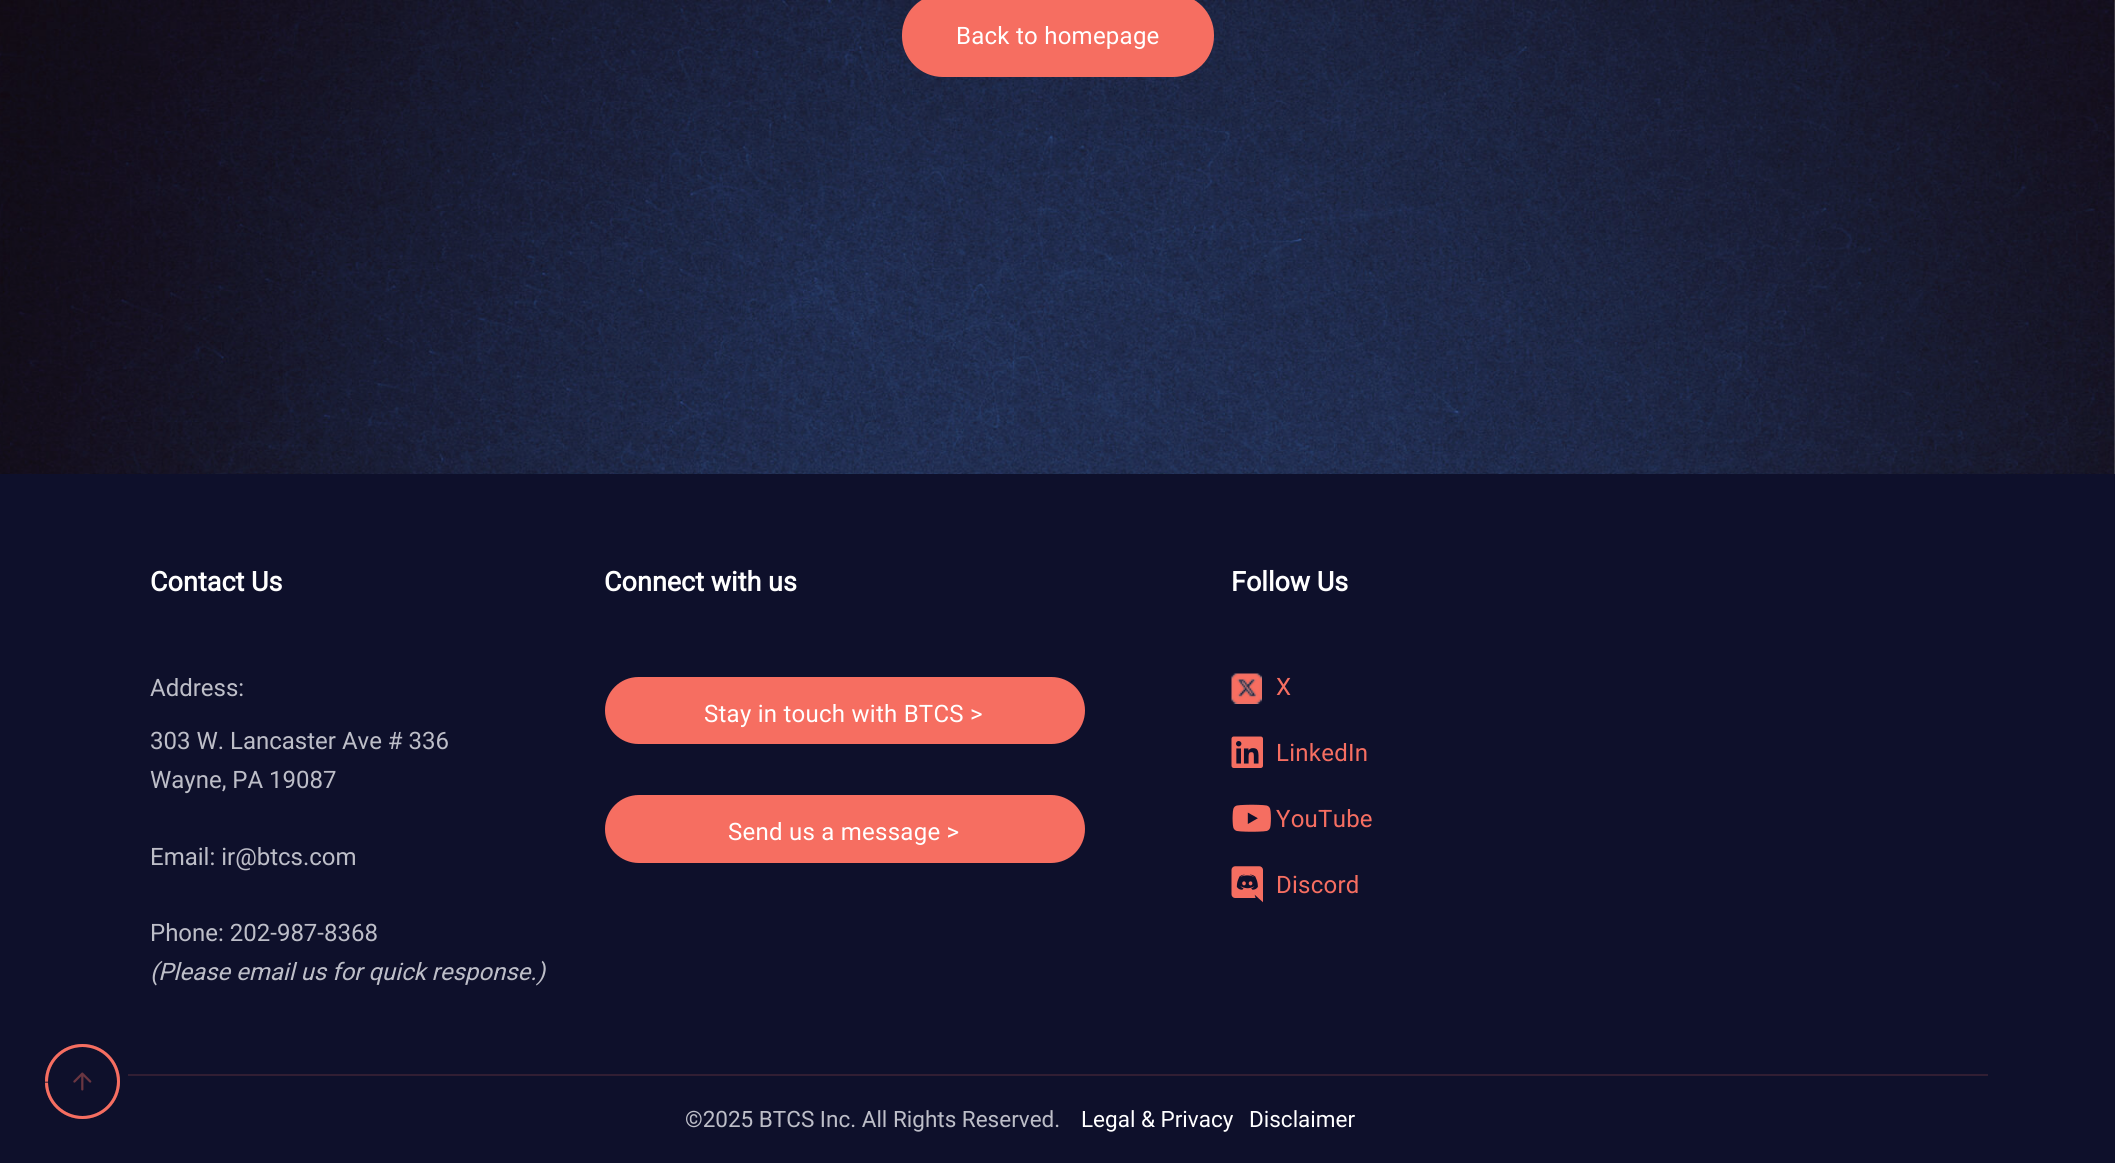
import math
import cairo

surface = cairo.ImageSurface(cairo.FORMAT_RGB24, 2115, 1163)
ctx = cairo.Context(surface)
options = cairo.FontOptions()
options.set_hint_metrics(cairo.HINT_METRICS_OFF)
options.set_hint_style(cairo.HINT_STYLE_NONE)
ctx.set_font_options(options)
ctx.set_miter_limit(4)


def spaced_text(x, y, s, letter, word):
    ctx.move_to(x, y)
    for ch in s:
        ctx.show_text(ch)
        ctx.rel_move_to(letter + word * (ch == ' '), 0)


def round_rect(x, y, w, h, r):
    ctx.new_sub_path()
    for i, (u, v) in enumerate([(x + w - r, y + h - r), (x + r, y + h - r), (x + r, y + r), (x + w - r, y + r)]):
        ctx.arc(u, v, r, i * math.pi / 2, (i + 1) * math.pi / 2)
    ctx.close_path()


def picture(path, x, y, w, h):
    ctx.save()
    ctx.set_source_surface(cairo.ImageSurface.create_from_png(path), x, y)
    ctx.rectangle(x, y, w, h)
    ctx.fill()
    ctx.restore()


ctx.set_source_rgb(1, 1, 1)
ctx.paint()
picture("img1.png", 0, 0, 2115, 474)
ctx.set_source_rgba(0.961, 0.431, 0.38, 0.07)
ctx.rectangle(0, 0, 2115, 474)
ctx.fill()
ctx.set_source_rgb(0.961, 0.431, 0.38)
round_rect(903, -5, 310, 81, 40)
ctx.fill_preserve()
ctx.stroke()
ctx.select_font_face("Roboto")
ctx.set_font_size(24)
ctx.set_source_rgb(1, 1, 1)
spaced_text(956, 44, "Back to homepage", 0.25, 0)
ctx.set_source_rgb(0.055, 0.063, 0.169)
ctx.rectangle(0, 474, 2115, 689)
ctx.fill()
ctx.arc(82.5, 1081.5, 36, 0, 2 * math.pi)
ctx.set_source_rgb(0.416, 0.212, 0.255)
ctx.set_line_width(3)
ctx.stroke()
picture("img2.png", 73, 1072, 19, 19)
ctx.new_path()
ctx.move_to(46.5, 1081.5)
ctx.curve_to(46.5, 1061.5, 62.5, 1045.5, 82.5, 1045.5)
ctx.curve_to(102.5, 1045.5, 118.5, 1061.5, 118.5, 1081.5)
ctx.curve_to(118.5, 1101.5, 102.5, 1117.5, 82.5, 1117.5)
ctx.curve_to(63, 1117.5, 47, 1102, 46.5, 1083)
ctx.set_source_rgb(0.961, 0.431, 0.38)
ctx.stroke()
ctx.select_font_face("Roboto", cairo.FONT_SLANT_NORMAL, cairo.FONT_WEIGHT_BOLD)
ctx.set_font_size(27)
ctx.set_source_rgb(1, 1, 1)
ctx.move_to(150, 591)
ctx.show_text("Contact Us")
ctx.select_font_face("Roboto")
ctx.set_font_size(24)
ctx.set_source_rgb(0.741, 0.745, 0.784)
ctx.move_to(150, 696)
ctx.show_text("Address:")
ctx.move_to(150, 749)
ctx.show_text("303 W. Lancaster Ave # 336")
ctx.move_to(150, 788)
ctx.show_text("Wayne, PA 19087")
ctx.move_to(150, 865)
ctx.show_text("Email: ir@btcs.com")
ctx.move_to(150, 941)
ctx.show_text("Phone: 202-987-8368")
ctx.select_font_face("Roboto", cairo.FONT_SLANT_ITALIC)
ctx.move_to(150, 980)
ctx.show_text("(Please email us for quick response.)")
ctx.select_font_face("Roboto", cairo.FONT_SLANT_NORMAL, cairo.FONT_WEIGHT_BOLD)
ctx.set_font_size(27)
ctx.set_source_rgb(1, 1, 1)
ctx.move_to(604, 591)
ctx.show_text("Connect with us")
ctx.set_source_rgb(0.961, 0.431, 0.38)
round_rect(606, 678, 478, 65, 32.5)
ctx.fill_preserve()
ctx.set_line_width(2)
ctx.stroke()
ctx.select_font_face("Roboto")
ctx.set_font_size(24)
ctx.set_source_rgb(1, 1, 1)
spaced_text(704, 722, "Stay in touch with BTCS >", 0.25, 0)
ctx.set_source_rgb(0.961, 0.431, 0.38)
round_rect(606, 796, 478, 66, 33)
ctx.fill_preserve()
ctx.stroke()
ctx.set_source_rgb(1, 1, 1)
spaced_text(728, 840, "Send us a message >", 0.25, 0)
ctx.select_font_face("Roboto", cairo.FONT_SLANT_NORMAL, cairo.FONT_WEIGHT_BOLD)
ctx.set_font_size(27)
ctx.move_to(1231, 591)
ctx.show_text("Follow Us")
picture("img3.png", 1231, 673, 31, 31)
ctx.select_font_face("Roboto")
ctx.set_font_size(24)
ctx.set_source_rgb(0.961, 0.431, 0.38)
spaced_text(1276, 695, "X", 0.25, 0)
picture("img4.png", 1231, 736, 32, 32)
spaced_text(1276, 761, "LinkedIn", 0.25, 0)
picture("img5.png", 1232, 804, 39, 28)
spaced_text(1276, 827, "YouTube", 0.25, 0)
picture("img6.png", 1231, 866, 32, 37)
spaced_text(1276, 893, "Discord", 0.25, 0)
ctx.set_source_rgb(0.192, 0.118, 0.2)
ctx.rectangle(128, 1074, 1860, 2)
ctx.fill()
ctx.set_font_size(22.5)
ctx.set_source_rgb(0.741, 0.745, 0.784)
ctx.move_to(685, 1127)
ctx.show_text("©2025 BTCS Inc. All Rights Reserved.")
ctx.set_source_rgb(1, 1, 1)
ctx.move_to(1081, 1127)
ctx.show_text("Legal & Privacy")
ctx.move_to(1249, 1127)
ctx.show_text("Disclaimer")
surface.write_to_png("page.png")
